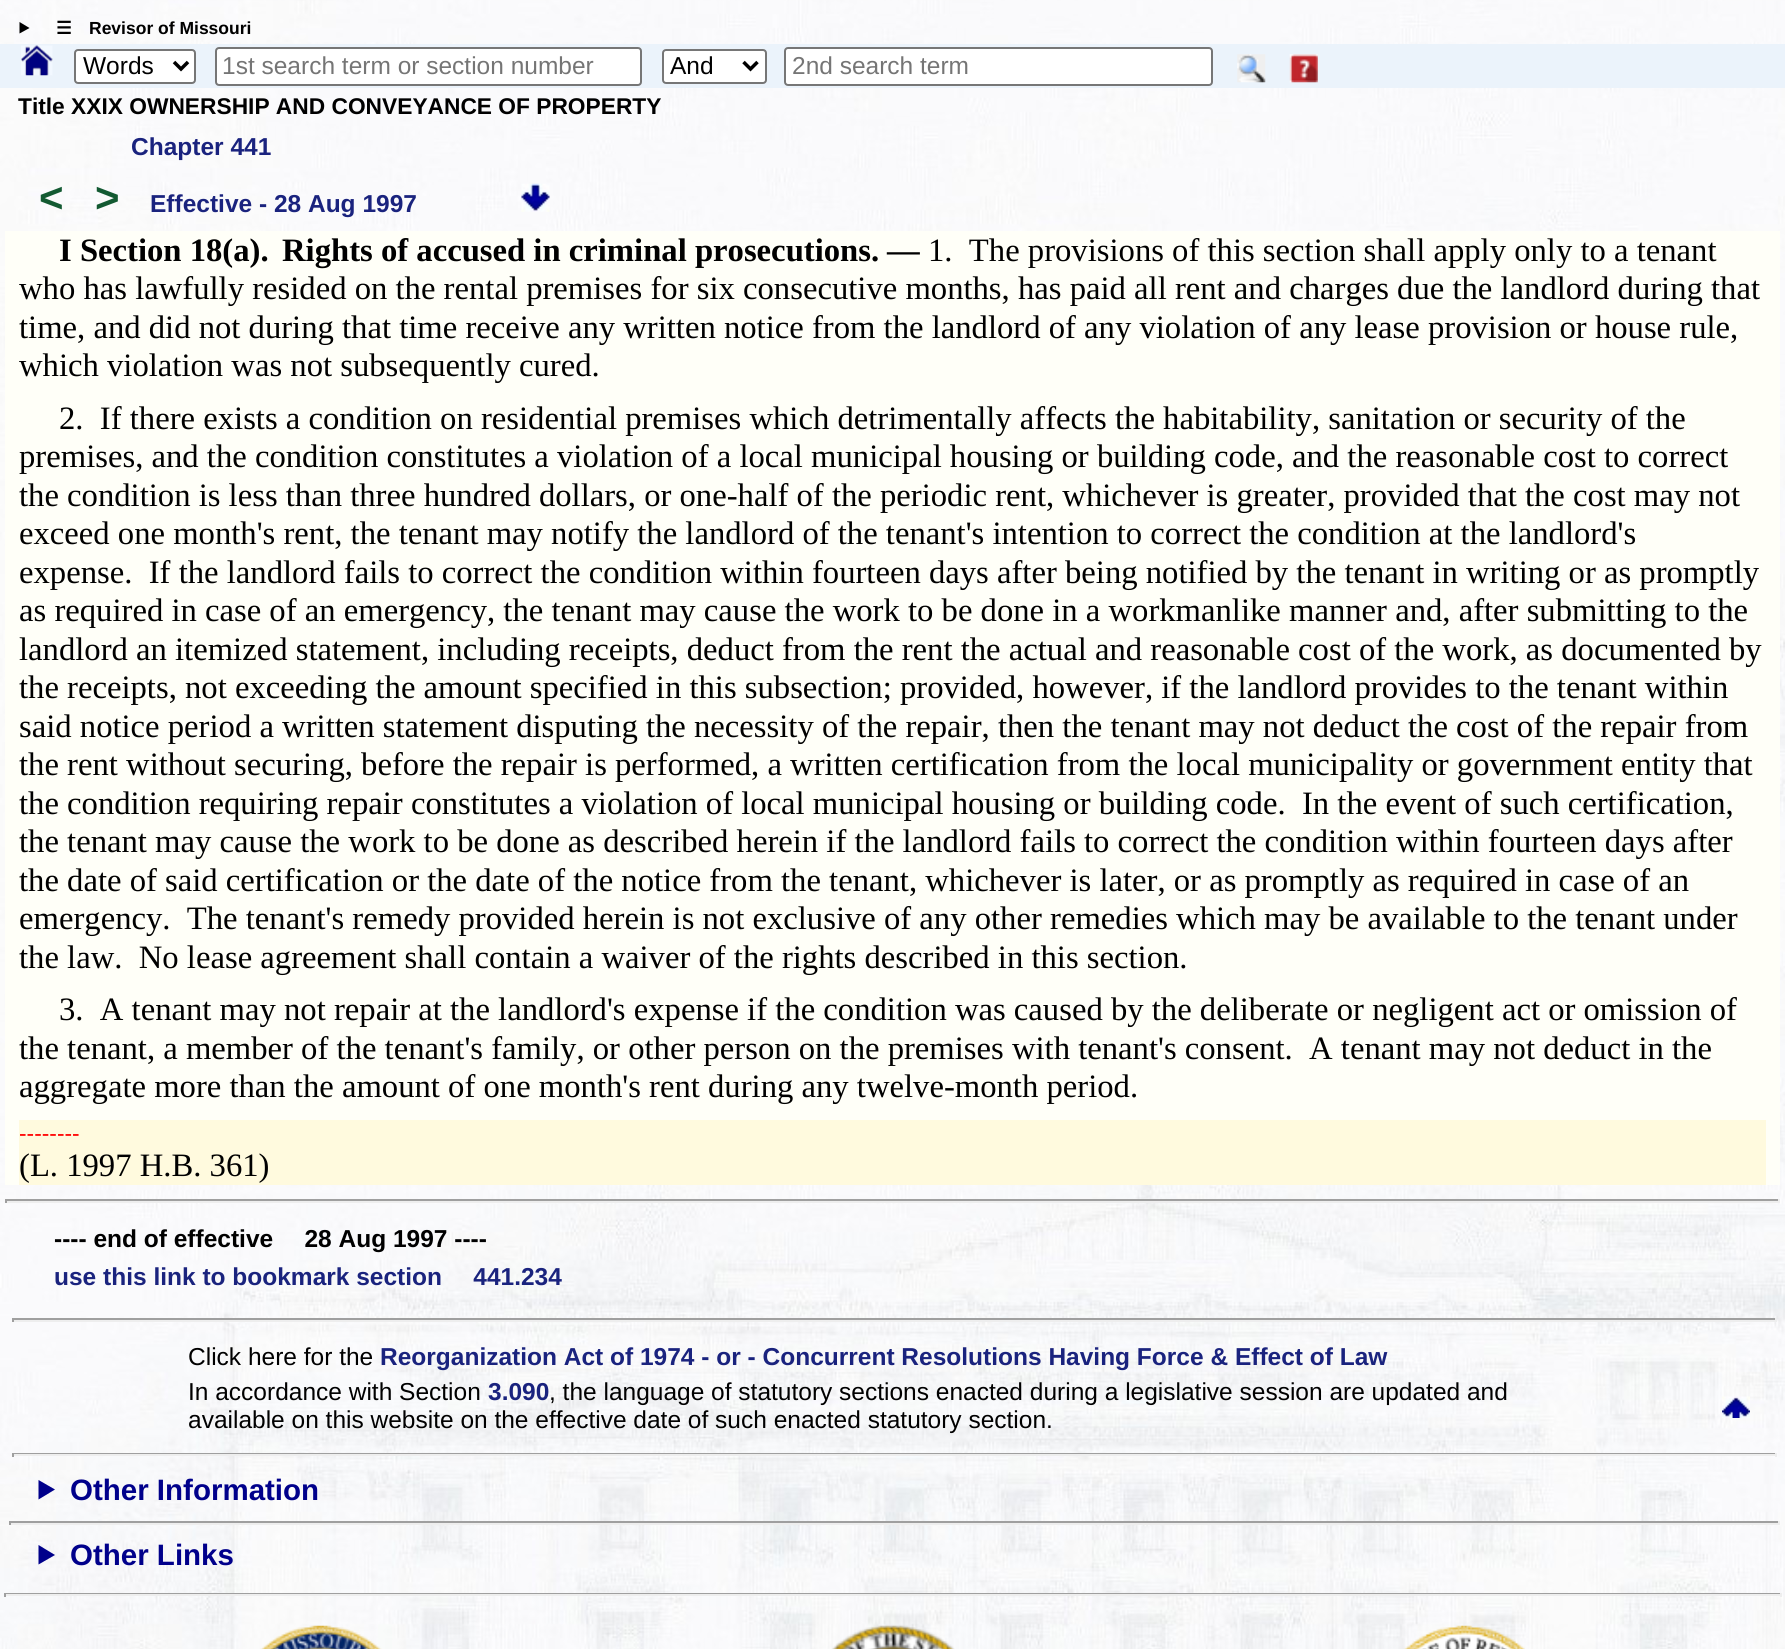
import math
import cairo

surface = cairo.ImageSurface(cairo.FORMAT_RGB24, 1785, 1649)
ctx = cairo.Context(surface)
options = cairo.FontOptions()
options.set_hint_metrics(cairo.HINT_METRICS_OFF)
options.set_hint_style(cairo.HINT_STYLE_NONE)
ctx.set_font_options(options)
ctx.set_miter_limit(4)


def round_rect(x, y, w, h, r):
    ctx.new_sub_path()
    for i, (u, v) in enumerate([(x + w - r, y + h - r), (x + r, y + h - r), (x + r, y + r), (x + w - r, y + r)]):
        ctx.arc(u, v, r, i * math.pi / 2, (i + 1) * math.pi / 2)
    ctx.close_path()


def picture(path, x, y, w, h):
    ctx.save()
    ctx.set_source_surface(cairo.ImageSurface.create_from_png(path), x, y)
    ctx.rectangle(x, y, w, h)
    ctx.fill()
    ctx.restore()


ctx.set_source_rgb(1, 1, 1)
ctx.paint()
picture("img1.png", 0, 0, 1785, 1649)
ctx.set_source_rgb(0, 0, 0)
ctx.new_path()
ctx.move_to(19.5, 22)
ctx.line_to(29.5, 28)
ctx.line_to(19.5, 33.5)
ctx.close_path()
ctx.fill()
ctx.select_font_face("DejaVu Sans", cairo.FONT_SLANT_NORMAL, cairo.FONT_WEIGHT_BOLD)
ctx.set_font_size(17.5)
ctx.move_to(56, 34)
ctx.show_text("☰")
ctx.select_font_face("Liberation Sans", cairo.FONT_SLANT_NORMAL, cairo.FONT_WEIGHT_BOLD)
ctx.move_to(89, 34)
ctx.show_text("Revisor of Missouri")
ctx.set_source_rgb(0.918, 0.953, 0.984)
ctx.rectangle(0, 44, 1785, 44)
ctx.fill()
picture("img2.png", 21, 45, 32, 31)
ctx.set_source_rgb(1, 1, 1)
round_rect(75, 50, 120, 33, 3)
ctx.fill_preserve()
ctx.set_source_rgb(0.463, 0.463, 0.463)
ctx.stroke()
ctx.new_path()
ctx.move_to(174, 62)
ctx.line_to(181, 69)
ctx.line_to(188, 62)
ctx.set_source_rgb(0, 0, 0)
ctx.set_line_width(3.5)
ctx.stroke()
ctx.select_font_face("Liberation Sans")
ctx.set_font_size(24.5)
ctx.move_to(83, 74)
ctx.show_text("Words")
ctx.set_source_rgb(1, 1, 1)
round_rect(216, 48, 425, 37, 3)
ctx.fill_preserve()
ctx.set_source_rgb(0.463, 0.463, 0.463)
ctx.set_line_width(2)
ctx.stroke()
ctx.set_source_rgb(0.459, 0.459, 0.459)
ctx.move_to(222, 74)
ctx.show_text("1st search term or section number")
ctx.set_source_rgb(1, 1, 1)
round_rect(663, 50, 103, 33, 3)
ctx.fill_preserve()
ctx.set_source_rgb(0.463, 0.463, 0.463)
ctx.stroke()
ctx.new_path()
ctx.move_to(743.5, 62)
ctx.line_to(750.5, 69)
ctx.line_to(757.5, 62)
ctx.set_source_rgb(0, 0, 0)
ctx.set_line_width(3.5)
ctx.stroke()
ctx.move_to(670, 74)
ctx.show_text("And")
ctx.set_source_rgb(1, 1, 1)
round_rect(785, 48, 427, 37, 3)
ctx.fill_preserve()
ctx.set_source_rgb(0.463, 0.463, 0.463)
ctx.set_line_width(2)
ctx.stroke()
ctx.set_source_rgb(0.459, 0.459, 0.459)
ctx.move_to(792, 74)
ctx.show_text("2nd search term")
picture("img3.png", 1237, 54, 29, 29)
picture("img4.png", 1289, 54, 29, 29)
ctx.select_font_face("Liberation Sans", cairo.FONT_SLANT_NORMAL, cairo.FONT_WEIGHT_BOLD)
ctx.set_font_size(22.75)
ctx.set_source_rgb(0, 0, 0)
ctx.move_to(18, 114)
ctx.show_text("Title XXIX OWNERSHIP AND CONVEYANCE OF PROPERTY")
ctx.set_font_size(24.5)
ctx.set_source_rgb(0.102, 0.137, 0.494)
ctx.move_to(131, 155)
ctx.show_text("Chapter 441")
ctx.set_font_size(42)
ctx.set_source_rgb(0.078, 0.353, 0.196)
ctx.move_to(39, 212)
ctx.show_text("<")
ctx.move_to(95, 212)
ctx.show_text(">")
ctx.set_font_size(24.5)
ctx.set_source_rgb(0.102, 0.137, 0.494)
ctx.move_to(150, 212)
ctx.show_text("Effective - 28 Aug 1997")
picture("img5.png", 521, 183, 29, 29)
ctx.set_source_rgb(1, 1, 0.969)
ctx.rectangle(5, 231, 1775, 954)
ctx.fill()
ctx.select_font_face("Liberation Serif", cairo.FONT_SLANT_NORMAL, cairo.FONT_WEIGHT_BOLD)
ctx.set_font_size(32.67)
ctx.set_source_rgb(0, 0, 0)
ctx.move_to(59, 261)
ctx.show_text("I Section 18(a).")
ctx.move_to(282, 261)
ctx.show_text("Rights of accused in criminal prosecutions.")
ctx.move_to(887, 261)
ctx.show_text("—")
ctx.select_font_face("Liberation Serif")
ctx.move_to(928, 261)
ctx.show_text("1.  The provisions of this section shall apply only to a tenant")
ctx.move_to(19, 299)
ctx.show_text("who has lawfully resided on the rental premises for six consecutive months, has paid all rent and charges due the landlord during that")
ctx.move_to(19, 338)
ctx.show_text("time, and did not during that time receive any written notice from the landlord of any violation of any lease provision or house rule,")
ctx.move_to(19, 376)
ctx.show_text("which violation was not subsequently cured.")
ctx.move_to(59, 429)
ctx.show_text("2.  If there exists a condition on residential premises which detrimentally affects the habitability, sanitation or security of the")
ctx.move_to(19, 467)
ctx.show_text("premises, and the condition constitutes a violation of a local municipal housing or building code, and the reasonable cost to correct")
ctx.move_to(19, 506)
ctx.show_text("the condition is less than three hundred dollars, or one-half of the periodic rent, whichever is greater, provided that the cost may not")
ctx.move_to(19, 544)
ctx.show_text("exceed one month's rent, the tenant may notify the landlord of the tenant's intention to correct the condition at the landlord's")
ctx.move_to(19, 583)
ctx.show_text("expense.  If the landlord fails to correct the condition within fourteen days after being notified by the tenant in writing or as promptly")
ctx.move_to(19, 621)
ctx.show_text("as required in case of an emergency, the tenant may cause the work to be done in a workmanlike manner and, after submitting to the")
ctx.move_to(19, 660)
ctx.show_text("landlord an itemized statement, including receipts, deduct from the rent the actual and reasonable cost of the work, as documented by")
ctx.move_to(19, 698)
ctx.show_text("the receipts, not exceeding the amount specified in this subsection; provided, however, if the landlord provides to the tenant within")
ctx.move_to(19, 737)
ctx.show_text("said notice period a written statement disputing the necessity of the repair, then the tenant may not deduct the cost of the repair from")
ctx.move_to(19, 775)
ctx.show_text("the rent without securing, before the repair is performed, a written certification from the local municipality or government entity that")
ctx.move_to(19, 814)
ctx.show_text("the condition requiring repair constitutes a violation of local municipal housing or building code.  In the event of such certification,")
ctx.move_to(19, 852)
ctx.show_text("the tenant may cause the work to be done as described herein if the landlord fails to correct the condition within fourteen days after")
ctx.move_to(19, 891)
ctx.show_text("the date of said certification or the date of the notice from the tenant, whichever is later, or as promptly as required in case of an")
ctx.move_to(19, 929)
ctx.show_text("emergency.  The tenant's remedy provided herein is not exclusive of any other remedies which may be available to the tenant under")
ctx.move_to(19, 968)
ctx.show_text("the law.  No lease agreement shall contain a waiver of the rights described in this section.")
ctx.move_to(59, 1020)
ctx.show_text("3.  A tenant may not repair at the landlord's expense if the condition was caused by the deliberate or negligent act or omission of")
ctx.move_to(19, 1059)
ctx.show_text("the tenant, a member of the tenant's family, or other person on the premises with tenant's consent.  A tenant may not deduct in the")
ctx.move_to(19, 1097)
ctx.show_text("aggregate more than the amount of one month's rent during any twelve-month period.")
ctx.set_source_rgb(1, 0.98, 0.871)
ctx.rectangle(19, 1120, 1747, 65)
ctx.fill()
ctx.select_font_face("Liberation Sans")
ctx.set_font_size(22.75)
ctx.set_source_rgb(1, 0, 0)
ctx.move_to(19, 1141)
ctx.show_text("--------")
ctx.select_font_face("Liberation Serif")
ctx.set_font_size(32.67)
ctx.set_source_rgb(0, 0, 0)
ctx.move_to(19, 1176)
ctx.show_text("(L. 1997 H.B. 361)")
ctx.set_source_rgb(0.624, 0.624, 0.624)
ctx.rectangle(5, 1199, 1775, 2)
ctx.fill()
ctx.set_source_rgb(0.933, 0.933, 0.933)
ctx.rectangle(1778, 1199, 2, 4)
ctx.fill()
ctx.rectangle(5, 1201, 1775, 2)
ctx.fill()
ctx.set_source_rgb(0.624, 0.624, 0.624)
ctx.rectangle(5, 1199, 2, 4)
ctx.fill()
ctx.select_font_face("Liberation Sans", cairo.FONT_SLANT_NORMAL, cairo.FONT_WEIGHT_BOLD)
ctx.set_font_size(24.5)
ctx.set_source_rgb(0, 0, 0)
ctx.move_to(54, 1247)
ctx.show_text("---- end of effective  28 Aug 1997 ----")
ctx.set_source_rgb(0.102, 0.137, 0.494)
ctx.move_to(54, 1285)
ctx.show_text("use this link to bookmark section  441.234")
ctx.set_source_rgb(0.624, 0.624, 0.624)
ctx.rectangle(12, 1318, 1764, 2)
ctx.fill()
ctx.set_source_rgb(0.933, 0.933, 0.933)
ctx.rectangle(1775, 1318, 2, 4)
ctx.fill()
ctx.rectangle(12, 1320, 1764, 2)
ctx.fill()
ctx.set_source_rgb(0.624, 0.624, 0.624)
ctx.rectangle(12, 1318, 2, 4)
ctx.fill()
ctx.select_font_face("Liberation Sans")
ctx.set_source_rgb(0, 0, 0)
ctx.move_to(188, 1365)
ctx.show_text("Click here for the")
ctx.select_font_face("Liberation Sans", cairo.FONT_SLANT_NORMAL, cairo.FONT_WEIGHT_BOLD)
ctx.set_source_rgb(0.102, 0.137, 0.494)
ctx.move_to(380, 1365)
ctx.show_text("Reorganization Act of 1974 - or - Concurrent Resolutions Having Force & Effect of Law")
ctx.select_font_face("Liberation Sans")
ctx.set_source_rgb(0, 0, 0)
ctx.move_to(188, 1400)
ctx.show_text("In accordance with Section")
ctx.select_font_face("Liberation Sans", cairo.FONT_SLANT_NORMAL, cairo.FONT_WEIGHT_BOLD)
ctx.set_source_rgb(0.102, 0.137, 0.494)
ctx.move_to(488, 1400)
ctx.show_text("3.090")
ctx.select_font_face("Liberation Sans")
ctx.set_source_rgb(0, 0, 0)
ctx.move_to(549, 1400)
ctx.show_text(", the language of statutory sections enacted during a legislative session are updated and")
ctx.move_to(188, 1428)
ctx.show_text("available on this website on the effective date of such enacted statutory section.")
picture("img6.png", 1722, 1396, 28, 22)
ctx.set_source_rgb(0.624, 0.624, 0.624)
ctx.rectangle(12, 1453, 1764, 1)
ctx.fill()
ctx.set_source_rgb(0.933, 0.933, 0.933)
ctx.rectangle(1775, 1453, 2, 4)
ctx.fill()
ctx.rectangle(12, 1454, 1764, 2)
ctx.fill()
ctx.set_source_rgb(0.624, 0.624, 0.624)
ctx.rectangle(12, 1453, 2, 4)
ctx.fill()
ctx.set_source_rgb(0, 0, 0.545)
ctx.new_path()
ctx.move_to(38.5, 1480)
ctx.line_to(55, 1489.5)
ctx.line_to(38.5, 1499.5)
ctx.close_path()
ctx.fill()
ctx.select_font_face("Liberation Sans", cairo.FONT_SLANT_NORMAL, cairo.FONT_WEIGHT_BOLD)
ctx.set_font_size(29.5)
ctx.move_to(70, 1500)
ctx.show_text("Other Information")
ctx.set_source_rgb(0.624, 0.624, 0.624)
ctx.rectangle(9, 1521, 1771, 2)
ctx.fill()
ctx.set_source_rgb(0.933, 0.933, 0.933)
ctx.rectangle(1778, 1521, 2, 4)
ctx.fill()
ctx.rectangle(9, 1523, 1771, 2)
ctx.fill()
ctx.set_source_rgb(0.624, 0.624, 0.624)
ctx.rectangle(9, 1521, 2, 4)
ctx.fill()
ctx.set_source_rgb(0, 0, 0.545)
ctx.new_path()
ctx.move_to(38.5, 1545)
ctx.line_to(55, 1555)
ctx.line_to(38.5, 1564.5)
ctx.close_path()
ctx.fill()
ctx.move_to(70, 1565)
ctx.show_text("Other Links")
ctx.set_source_rgb(0.624, 0.624, 0.624)
ctx.rectangle(4, 1593, 1778, 1)
ctx.fill()
ctx.set_source_rgb(0.933, 0.933, 0.933)
ctx.rectangle(1780, 1593, 2, 4)
ctx.fill()
ctx.rectangle(4, 1594, 1778, 2)
ctx.fill()
ctx.set_source_rgb(0.624, 0.624, 0.624)
ctx.rectangle(4, 1593, 2, 4)
ctx.fill()
picture("img7.png", 260, 1625, 122, 24)
picture("img8.png", 832, 1625, 123, 24)
picture("img9.png", 1403, 1625, 122, 24)
surface.write_to_png("page.png")
